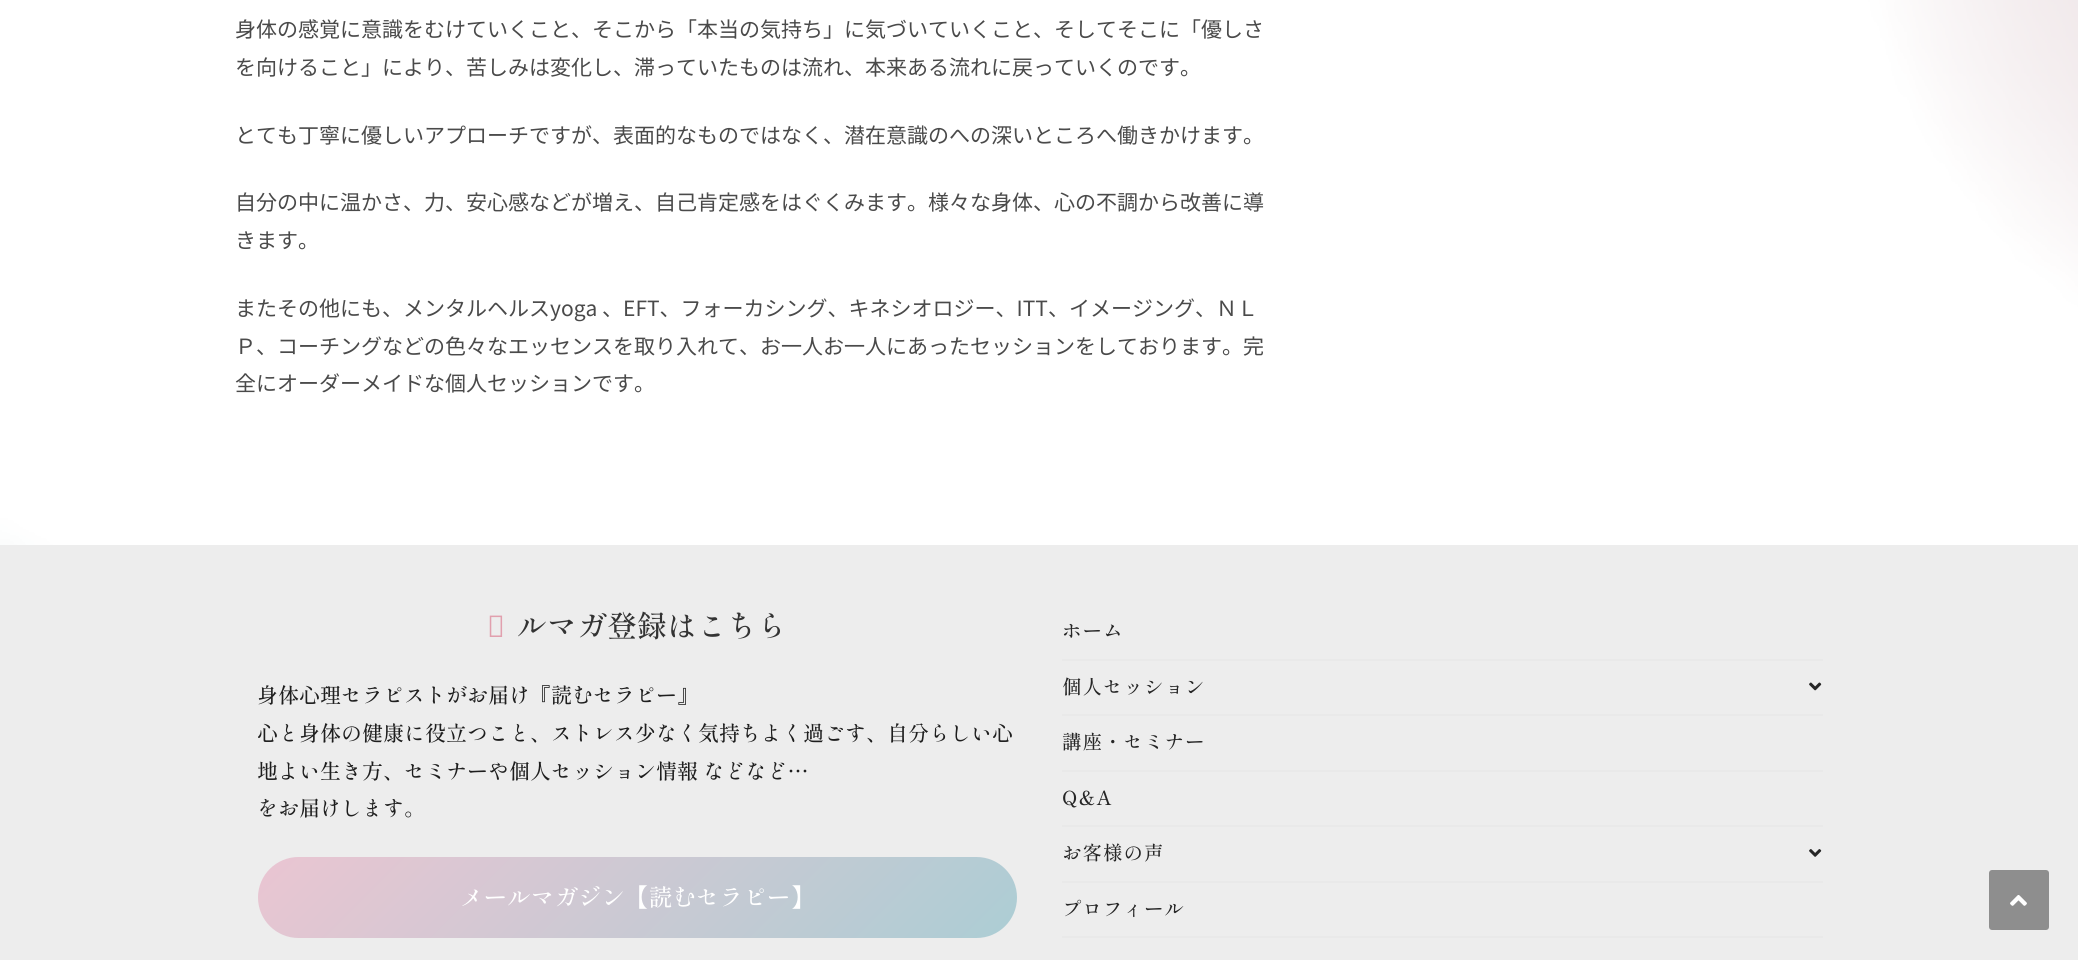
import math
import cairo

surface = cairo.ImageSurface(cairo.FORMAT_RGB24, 2078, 960)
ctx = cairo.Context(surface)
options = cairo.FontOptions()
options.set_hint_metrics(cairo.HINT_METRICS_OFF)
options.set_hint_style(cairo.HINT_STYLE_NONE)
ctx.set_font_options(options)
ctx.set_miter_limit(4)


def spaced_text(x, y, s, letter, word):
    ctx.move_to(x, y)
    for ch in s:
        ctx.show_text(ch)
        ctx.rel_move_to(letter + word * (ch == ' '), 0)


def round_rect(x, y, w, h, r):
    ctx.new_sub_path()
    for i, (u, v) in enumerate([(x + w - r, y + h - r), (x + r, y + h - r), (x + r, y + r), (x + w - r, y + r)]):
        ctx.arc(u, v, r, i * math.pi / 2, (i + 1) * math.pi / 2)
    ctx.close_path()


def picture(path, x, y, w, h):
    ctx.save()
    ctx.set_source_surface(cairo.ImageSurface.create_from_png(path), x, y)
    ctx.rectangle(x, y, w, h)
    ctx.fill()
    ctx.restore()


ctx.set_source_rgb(1, 1, 1)
ctx.paint()
picture("img1.png", 0, 0, 2078, 545)
ctx.select_font_face("Noto Sans JP Thin")
ctx.set_font_size(21)
ctx.set_source_rgb(0.29, 0.29, 0.29)
ctx.move_to(235, 37)
ctx.show_text("身体の感覚に意識をむけていくこと、そこから「本当の気持ち」に気づいていくこと、そしてそこに「優しさ")
ctx.move_to(235, 75)
ctx.show_text("を向けること」により、苦しみは変化し、滞っていたものは流れ、本来ある流れに戻っていくのです。")
ctx.move_to(235, 143)
ctx.show_text("とても丁寧に優しいアプローチですが、表面的なものではなく、潜在意識のへの深いところへ働きかけます。")
ctx.move_to(235, 210)
ctx.show_text("自分の中に温かさ、力、安心感などが増え、自己肯定感をはぐくみます。様々な身体、心の不調から改善に導")
ctx.move_to(235, 248)
ctx.show_text("きます。")
ctx.move_to(235, 316)
ctx.show_text("またその他にも、メンタルヘルスyoga 、EFT、フォーカシング、キネシオロジー、ITT、イメージング、ＮＬ")
ctx.move_to(235, 354)
ctx.show_text("Ｐ、コーチングなどの色々なエッセンスを取り入れて、お一人お一人にあったセッションをしております。完")
ctx.move_to(235, 391)
ctx.show_text("全にオーダーメイドな個人セッションです。")
ctx.set_source_rgb(0.929, 0.929, 0.929)
ctx.rectangle(0, 545, 2078, 415)
ctx.fill()
ctx.select_font_face("Noto Sans Medium")
ctx.set_font_size(30)
ctx.set_source_rgb(0.882, 0.627, 0.682)
ctx.move_to(487, 637)
ctx.show_text("メ")
ctx.select_font_face("Shippori Mincho Medium")
ctx.set_source_rgb(0.2, 0.2, 0.2)
ctx.move_to(517, 637)
ctx.show_text("ルマガ登録はこちら")
ctx.set_font_size(21)
ctx.set_source_rgb(0.118, 0.118, 0.118)
ctx.move_to(257, 703)
ctx.show_text("身体心理セラピストがお届け『読むセラピー』")
ctx.move_to(257, 741)
ctx.show_text("心と身体の健康に役立つこと、ストレス少なく気持ちよく過ごす、自分らしい心")
ctx.move_to(257, 779)
ctx.show_text("地よい生き方、セミナーや個人セッション情報 などなど…")
ctx.move_to(257, 816)
ctx.show_text("をお届けします。")
gradient = cairo.LinearGradient(428, 687, 848, 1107)
gradient.add_color_stop_rgba(0, 0.918, 0.773, 0.824, 1)
gradient.add_color_stop_rgba(1, 0.675, 0.804, 0.831, 1)
ctx.set_source(gradient)
round_rect(258, 857, 759, 81, 40.5)
ctx.fill()
ctx.set_font_size(23.6)
ctx.set_source_rgb(1, 1, 1)
ctx.move_to(460, 906)
ctx.show_text("メールマガジン【読むセラピー】")
ctx.set_source_rgb(0.914, 0.914, 0.914)
ctx.rectangle(1062, 659, 761, 2)
ctx.fill()
ctx.set_font_size(19.5)
ctx.set_source_rgb(0.149, 0.149, 0.149)
spaced_text(1062, 638, "ホーム", 1, 0)
ctx.set_source_rgb(0.914, 0.914, 0.914)
ctx.rectangle(1062, 714, 761, 2)
ctx.fill()
ctx.set_source_rgb(0.149, 0.149, 0.149)
spaced_text(1062, 694, "個人セッション", 1, 0)
picture("img2.png", 1809, 682, 13, 9)
ctx.set_source_rgb(0.914, 0.914, 0.914)
ctx.rectangle(1062, 770, 761, 2)
ctx.fill()
ctx.set_source_rgb(0.149, 0.149, 0.149)
spaced_text(1062, 749, "講座・セミナー", 1, 0)
ctx.set_source_rgb(0.914, 0.914, 0.914)
ctx.rectangle(1062, 825, 761, 2)
ctx.fill()
ctx.set_source_rgb(0.149, 0.149, 0.149)
spaced_text(1062, 805, "Q&A", 1, 0)
ctx.set_source_rgb(0.914, 0.914, 0.914)
ctx.rectangle(1062, 881, 761, 2)
ctx.fill()
ctx.set_source_rgb(0.149, 0.149, 0.149)
spaced_text(1062, 860, "お客様の声", 1, 0)
picture("img3.png", 1809, 849, 13, 8)
ctx.set_source_rgb(0.914, 0.914, 0.914)
ctx.rectangle(1062, 936, 761, 2)
ctx.fill()
ctx.set_source_rgb(0.149, 0.149, 0.149)
spaced_text(1062, 916, "プロフィール", 1, 0)
ctx.set_source_rgb(0.557, 0.557, 0.557)
round_rect(1989, 870, 60, 60, 3)
ctx.fill()
picture("img4.png", 2010, 895, 17, 11)
surface.write_to_png("page.png")
